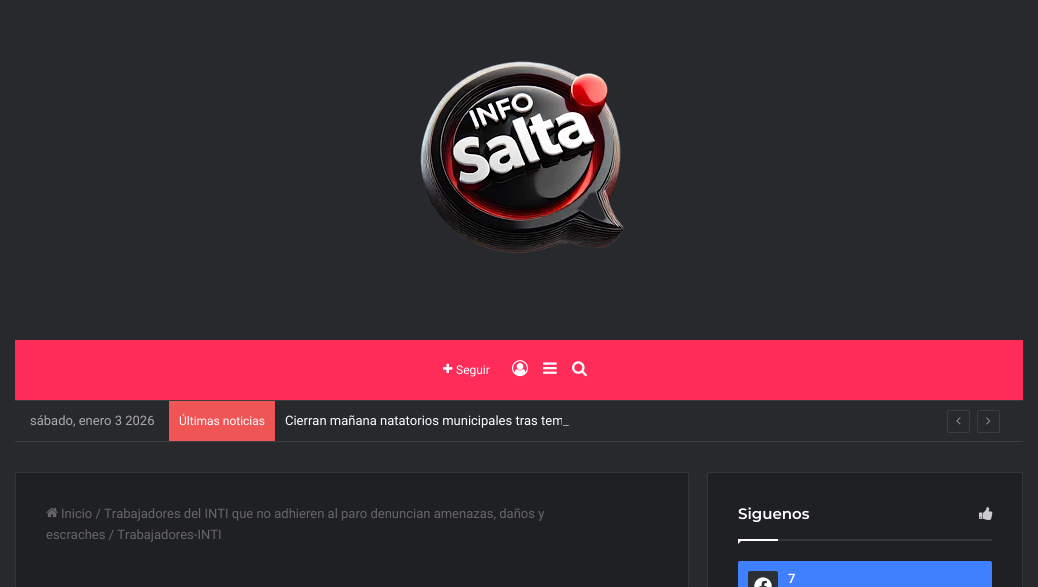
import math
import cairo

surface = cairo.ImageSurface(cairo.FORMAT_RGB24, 1038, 587)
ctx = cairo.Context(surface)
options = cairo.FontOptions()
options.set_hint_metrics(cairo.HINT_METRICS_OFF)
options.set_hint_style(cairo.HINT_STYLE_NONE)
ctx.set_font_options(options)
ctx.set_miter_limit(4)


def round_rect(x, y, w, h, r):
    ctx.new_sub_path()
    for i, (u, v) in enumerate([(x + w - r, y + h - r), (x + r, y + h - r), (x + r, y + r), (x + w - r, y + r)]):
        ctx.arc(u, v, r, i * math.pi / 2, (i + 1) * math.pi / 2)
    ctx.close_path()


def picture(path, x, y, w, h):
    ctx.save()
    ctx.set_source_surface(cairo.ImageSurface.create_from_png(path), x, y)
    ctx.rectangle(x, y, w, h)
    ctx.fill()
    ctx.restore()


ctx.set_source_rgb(0.153, 0.161, 0.176)
ctx.paint()
picture("img1.png", 420, 61, 204, 192)
ctx.set_source_rgb(1, 0.169, 0.345)
ctx.rectangle(15, 340, 1008, 60)
ctx.fill()
picture("img2.png", 443, 363, 10, 11)
ctx.select_font_face("Roboto")
ctx.set_font_size(12)
ctx.set_source_rgb(1, 1, 1)
ctx.move_to(456, 374)
ctx.show_text("Seguir")
picture("img3.png", 512, 360, 16, 17)
picture("img4.png", 543, 362, 14, 12)
picture("img5.png", 572, 361, 15, 16)
ctx.set_source_rgb(0.231, 0.243, 0.251)
ctx.rectangle(15, 400, 1008, 1)
ctx.fill()
ctx.rectangle(15, 441, 1008, 1)
ctx.fill()
ctx.set_font_size(13)
ctx.set_source_rgb(0.667, 0.667, 0.667)
ctx.move_to(30, 425)
ctx.show_text("sábado, enero 3 2026")
ctx.set_source_rgb(0.941, 0.333, 0.333)
ctx.rectangle(169, 401, 106, 40)
ctx.fill()
ctx.set_font_size(12)
ctx.set_source_rgb(1, 1, 1)
ctx.move_to(179, 425)
ctx.show_text("Últimas noticias")
ctx.set_font_size(13)
ctx.move_to(285, 425)
ctx.show_text("Cierran mañana natatorios municipales tras tem")
ctx.set_source_rgb(0.145, 0.157, 0.169)
ctx.rectangle(562, 418, 2, 7)
ctx.fill()
ctx.set_source_rgb(0.667, 0.667, 0.667)
ctx.move_to(563, 425)
ctx.show_text("_")
round_rect(947.5, 410.5, 22, 22, 1.5)
ctx.set_source_rgb(0.231, 0.243, 0.251)
ctx.set_line_width(1)
ctx.stroke()
picture("img6.png", 956, 417, 5, 8)
round_rect(977.5, 410.5, 22, 22, 1.5)
ctx.stroke()
picture("img7.png", 986, 417, 5, 8)
ctx.set_source_rgb(0.122, 0.125, 0.141)
round_rect(15.5, 472.5, 673, 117, 1.5)
ctx.fill_preserve()
ctx.set_source_rgb(0.208, 0.212, 0.227)
ctx.stroke()
picture("img8.png", 46, 507, 12, 11)
ctx.set_source_rgb(0.4, 0.4, 0.4)
ctx.move_to(61, 518)
ctx.show_text("Inicio / Trabajadores del INTI que no adhieren al paro denuncian amenazas, daños y")
ctx.move_to(46, 539)
ctx.show_text("escraches / Trabajadores-INTI")
ctx.set_source_rgb(0.122, 0.125, 0.141)
round_rect(707.5, 472.5, 315, 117, 1.5)
ctx.fill_preserve()
ctx.set_source_rgb(0.208, 0.212, 0.227)
ctx.stroke()
ctx.rectangle(778, 539, 214, 2)
ctx.fill()
ctx.select_font_face("Montserrat SemiBold")
ctx.set_font_size(15)
ctx.set_source_rgb(1, 1, 1)
ctx.move_to(738, 519)
ctx.show_text("Siguenos")
picture("img9.png", 979, 507, 14, 13)
ctx.new_path()
ctx.move_to(738, 539)
ctx.line_to(743, 539)
ctx.line_to(738, 544)
ctx.close_path()
ctx.fill()
ctx.rectangle(738, 539, 40, 2)
ctx.fill()
ctx.set_source_rgb(0.251, 0.502, 1)
round_rect(738, 561, 254, 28, 2)
ctx.fill()
ctx.set_source_rgb(0.173, 0.184, 0.204)
round_rect(748, 571, 30, 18, 2)
ctx.fill()
picture("img10.png", 754, 577, 18, 10)
ctx.select_font_face("Roboto SemiBold")
ctx.set_font_size(13)
ctx.set_source_rgb(1, 1, 1)
ctx.move_to(788, 583)
ctx.show_text("7")
surface.write_to_png("page.png")
